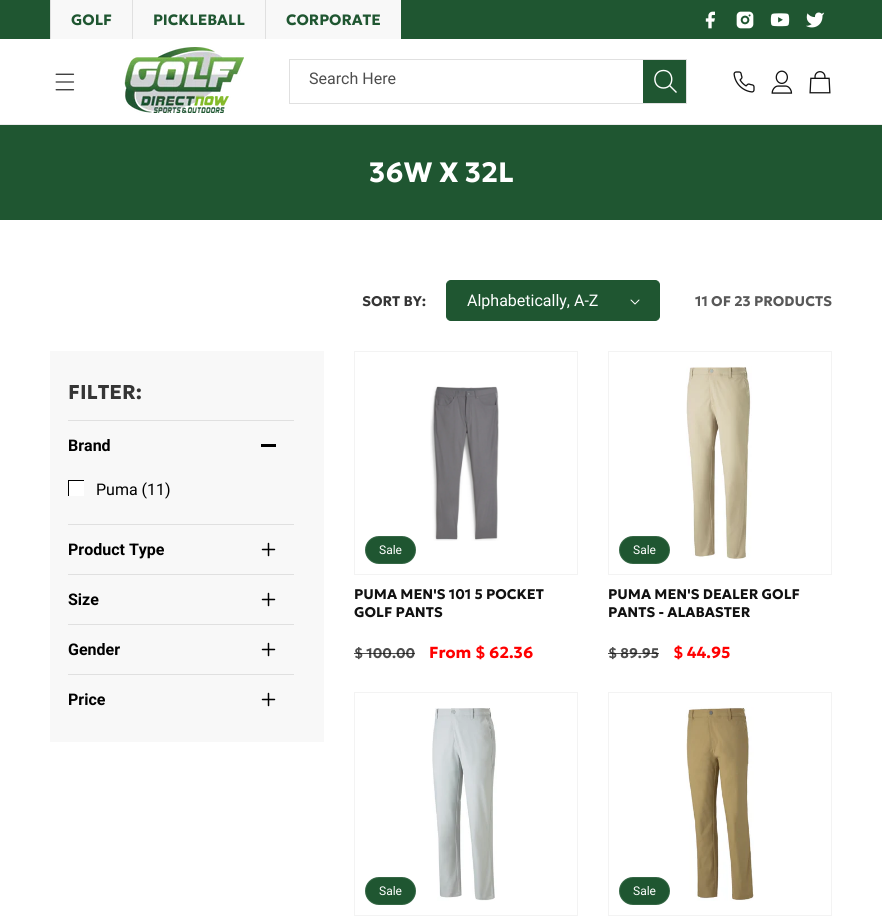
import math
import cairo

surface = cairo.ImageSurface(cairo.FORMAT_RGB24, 882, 921)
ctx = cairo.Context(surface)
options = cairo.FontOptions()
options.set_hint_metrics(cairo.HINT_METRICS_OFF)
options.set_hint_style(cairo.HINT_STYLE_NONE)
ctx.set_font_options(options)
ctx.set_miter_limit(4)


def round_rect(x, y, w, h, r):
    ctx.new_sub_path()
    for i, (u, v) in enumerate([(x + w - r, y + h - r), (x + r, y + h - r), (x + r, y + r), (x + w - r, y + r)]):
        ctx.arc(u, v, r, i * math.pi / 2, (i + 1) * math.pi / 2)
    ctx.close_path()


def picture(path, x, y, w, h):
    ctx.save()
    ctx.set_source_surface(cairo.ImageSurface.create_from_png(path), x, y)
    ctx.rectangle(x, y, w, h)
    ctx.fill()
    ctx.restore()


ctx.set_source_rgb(1, 1, 1)
ctx.paint()
ctx.set_source_rgb(0.122, 0.337, 0.192)
ctx.rectangle(0, 0, 882, 39)
ctx.fill()
ctx.set_source_rgb(0.969, 0.969, 0.969)
ctx.rectangle(51, 0, 81, 39)
ctx.fill()
ctx.set_source_rgb(0.878, 0.878, 0.878)
ctx.rectangle(50, 0, 1, 39)
ctx.fill()
ctx.select_font_face("Geologica", cairo.FONT_SLANT_NORMAL, cairo.FONT_WEIGHT_BOLD)
ctx.set_font_size(15)
ctx.set_source_rgb(0.122, 0.337, 0.192)
ctx.move_to(71, 25)
ctx.show_text("GOLF")
ctx.set_source_rgb(0.969, 0.969, 0.969)
ctx.rectangle(133, 0, 132, 39)
ctx.fill()
ctx.set_source_rgb(0.878, 0.878, 0.878)
ctx.rectangle(132, 0, 1, 39)
ctx.fill()
ctx.set_source_rgb(0.122, 0.337, 0.192)
ctx.move_to(153, 25)
ctx.show_text("PICKLEBALL")
ctx.set_source_rgb(0.969, 0.969, 0.969)
ctx.rectangle(266, 0, 135, 39)
ctx.fill()
ctx.set_source_rgb(0.878, 0.878, 0.878)
ctx.rectangle(265, 0, 1, 39)
ctx.fill()
ctx.set_source_rgb(0.122, 0.337, 0.192)
ctx.move_to(286, 25)
ctx.show_text("CORPORATE")
picture("img1.png", 705, 11, 10, 18)
picture("img2.png", 736, 11, 18, 18)
picture("img3.png", 770, 13, 20, 14)
picture("img4.png", 806, 12, 19, 16)
ctx.set_source_rgb(0.925, 0.925, 0.925)
ctx.rectangle(0, 124, 882, 1)
ctx.fill()
picture("img5.png", 55, 73, 20, 18)
picture("img6.png", 124, 47, 120, 66)
ctx.set_source_rgb(0.122, 0.337, 0.192)
ctx.rectangle(643, 60, 43, 43)
ctx.fill()
ctx.new_path()
ctx.move_to(663.5, 88)
ctx.curve_to(674.5, 88, 674.5, 70.5, 663.5, 70.5)
ctx.curve_to(652, 70.5, 652, 88, 663.5, 88)
ctx.close_path()
ctx.move_to(669.5, 85.5)
ctx.line_to(676.5, 92.5)
ctx.set_source_rgb(1, 1, 1)
ctx.set_line_width(1.4)
ctx.stroke()
ctx.rectangle(289.5, 59.5, 397, 44)
ctx.set_source_rgb(0.878, 0.878, 0.878)
ctx.set_line_width(1)
ctx.stroke()
ctx.select_font_face("Roboto")
ctx.set_font_size(16)
ctx.set_source_rgb(0.302, 0.302, 0.302)
ctx.move_to(309, 84)
ctx.show_text("Search Here")
picture("img7.png", 733, 71, 22, 22)
picture("img8.png", 771, 70, 22, 24)
picture("img9.png", 809, 71, 22, 23)
ctx.set_source_rgb(0.122, 0.337, 0.192)
ctx.rectangle(0, 125, 882, 95)
ctx.fill()
ctx.select_font_face("Geologica", cairo.FONT_SLANT_NORMAL, cairo.FONT_WEIGHT_BOLD)
ctx.set_font_size(28)
ctx.set_source_rgb(1, 1, 1)
ctx.move_to(369, 182)
ctx.show_text("36W X 32L")
ctx.set_font_size(14)
ctx.set_source_rgb(0.208, 0.208, 0.208)
ctx.move_to(362, 306)
ctx.show_text("SORT BY:")
ctx.set_source_rgb(0.122, 0.337, 0.192)
round_rect(446.5, 280.5, 213, 40, 4.5)
ctx.fill_preserve()
ctx.stroke()
ctx.select_font_face("Roboto")
ctx.set_font_size(16)
ctx.set_source_rgb(1, 1, 1)
ctx.move_to(467, 306)
ctx.show_text("Alphabetically, A-Z")
picture("img10.png", 630, 299, 10, 6)
ctx.select_font_face("Geologica", cairo.FONT_SLANT_NORMAL, cairo.FONT_WEIGHT_BOLD)
ctx.set_font_size(14)
ctx.set_source_rgb(0.345, 0.345, 0.345)
ctx.move_to(695, 306)
ctx.show_text("11 OF 23 PRODUCTS")
ctx.set_source_rgb(0.969, 0.969, 0.969)
ctx.rectangle(50, 351, 274, 391)
ctx.fill()
ctx.set_font_size(20)
ctx.set_source_rgb(0.208, 0.208, 0.208)
ctx.move_to(68, 399)
ctx.show_text("FILTER:")
ctx.set_source_rgb(0.878, 0.878, 0.878)
ctx.rectangle(68, 420, 226, 1)
ctx.fill()
ctx.select_font_face("Roboto", cairo.FONT_SLANT_NORMAL, cairo.FONT_WEIGHT_BOLD)
ctx.set_font_size(16)
ctx.set_source_rgb(0, 0, 0)
ctx.move_to(68, 451)
ctx.show_text("Brand")
ctx.rectangle(261, 444, 15, 3)
ctx.fill()
ctx.set_source_rgb(1, 1, 1)
ctx.rectangle(69, 481, 15, 15)
ctx.fill()
ctx.save()
ctx.rectangle(68, 480, 16, 16)
ctx.clip()
ctx.rectangle(68.5, 480.5, 16, 16)
ctx.set_source_rgb(0, 0, 0)
ctx.stroke()
ctx.restore()
ctx.select_font_face("Roboto")
ctx.set_source_rgb(0, 0, 0)
ctx.move_to(96, 495)
ctx.show_text("Puma (11)")
ctx.set_source_rgb(0.878, 0.878, 0.878)
ctx.rectangle(68, 524, 226, 1)
ctx.fill()
ctx.select_font_face("Roboto", cairo.FONT_SLANT_NORMAL, cairo.FONT_WEIGHT_BOLD)
ctx.set_source_rgb(0, 0, 0)
ctx.move_to(68, 555)
ctx.show_text("Product Type")
picture("img11.png", 261, 542, 15, 15)
ctx.set_source_rgb(0.878, 0.878, 0.878)
ctx.rectangle(68, 574, 226, 1)
ctx.fill()
ctx.set_source_rgb(0, 0, 0)
ctx.move_to(68, 605)
ctx.show_text("Size")
picture("img11.png", 261, 592, 15, 15)
ctx.set_source_rgb(0.878, 0.878, 0.878)
ctx.rectangle(68, 624, 226, 1)
ctx.fill()
ctx.set_source_rgb(0, 0, 0)
ctx.move_to(68, 655)
ctx.show_text("Gender")
picture("img11.png", 261, 642, 15, 15)
ctx.set_source_rgb(0.878, 0.878, 0.878)
ctx.rectangle(68, 674, 226, 1)
ctx.fill()
ctx.set_source_rgb(0, 0, 0)
ctx.move_to(68, 705)
ctx.show_text("Price")
picture("img11.png", 261, 692, 15, 15)
ctx.set_source_rgb(0.953, 0.953, 0.953)
ctx.rectangle(354, 351, 224, 224)
ctx.fill()
ctx.set_source_rgb(1, 1, 1)
ctx.rectangle(355, 352, 222, 222)
ctx.fill()
picture("img12.png", 430, 386, 69, 155)
ctx.set_source_rgb(0.122, 0.337, 0.192)
round_rect(365, 536, 51, 28, 14)
ctx.fill()
round_rect(365.5, 536.5, 50, 27, 13.5)
ctx.set_source_rgba(1, 1, 1, 0.1)
ctx.stroke()
ctx.select_font_face("Roboto")
ctx.set_font_size(12)
ctx.set_source_rgb(1, 1, 1)
ctx.move_to(379, 554)
ctx.show_text("Sale")
ctx.select_font_face("Geologica", cairo.FONT_SLANT_NORMAL, cairo.FONT_WEIGHT_BOLD)
ctx.set_font_size(14)
ctx.set_source_rgb(0.067, 0.067, 0.067)
ctx.move_to(354, 599)
ctx.show_text("PUMA MEN'S 101 5 POCKET")
ctx.move_to(354, 617)
ctx.show_text("GOLF PANTS")
ctx.set_source_rgb(0.302, 0.302, 0.302)
ctx.move_to(354, 658)
ctx.show_text("$ 100.00")
ctx.set_source_rgba(0.067, 0.067, 0.067, 0.75)
ctx.rectangle(354, 653, 61, 1)
ctx.fill()
ctx.set_font_size(16)
ctx.set_source_rgb(1, 0, 0)
ctx.move_to(429, 658)
ctx.show_text("From $ 62.36")
ctx.set_source_rgb(0.953, 0.953, 0.953)
ctx.rectangle(608, 351, 224, 224)
ctx.fill()
ctx.set_source_rgb(1, 1, 1)
ctx.rectangle(609, 352, 222, 222)
ctx.fill()
picture("img13.png", 686, 366, 66, 193)
ctx.set_source_rgb(0.122, 0.337, 0.192)
round_rect(619, 536, 51, 28, 14)
ctx.fill()
round_rect(619.5, 536.5, 50, 27, 13.5)
ctx.set_source_rgba(1, 1, 1, 0.1)
ctx.stroke()
ctx.select_font_face("Roboto")
ctx.set_font_size(12)
ctx.set_source_rgb(1, 1, 1)
ctx.move_to(633, 554)
ctx.show_text("Sale")
ctx.select_font_face("Geologica", cairo.FONT_SLANT_NORMAL, cairo.FONT_WEIGHT_BOLD)
ctx.set_font_size(14)
ctx.set_source_rgb(0.067, 0.067, 0.067)
ctx.move_to(608, 599)
ctx.show_text("PUMA MEN'S DEALER GOLF")
ctx.move_to(608, 617)
ctx.show_text("PANTS - ALABASTER")
ctx.set_source_rgb(0.302, 0.302, 0.302)
ctx.move_to(608, 658)
ctx.show_text("$ 89.95")
ctx.set_source_rgba(0.067, 0.067, 0.067, 0.75)
ctx.rectangle(608, 653, 51, 1)
ctx.fill()
ctx.set_font_size(16)
ctx.set_source_rgb(1, 0, 0)
ctx.move_to(673, 658)
ctx.show_text("$ 44.95")
ctx.set_source_rgb(0.953, 0.953, 0.953)
ctx.rectangle(354, 692, 224, 224)
ctx.fill()
ctx.set_source_rgb(1, 1, 1)
ctx.rectangle(355, 693, 222, 222)
ctx.fill()
picture("img14.png", 432, 708, 65, 193)
ctx.set_source_rgb(0.122, 0.337, 0.192)
round_rect(365, 877, 51, 28, 14)
ctx.fill()
round_rect(365.5, 877.5, 50, 27, 13.5)
ctx.set_source_rgba(1, 1, 1, 0.1)
ctx.stroke()
ctx.select_font_face("Roboto")
ctx.set_font_size(12)
ctx.set_source_rgb(1, 1, 1)
ctx.move_to(379, 895)
ctx.show_text("Sale")
ctx.set_source_rgb(0.953, 0.953, 0.953)
ctx.rectangle(608, 692, 224, 224)
ctx.fill()
ctx.set_source_rgb(1, 1, 1)
ctx.rectangle(609, 693, 222, 222)
ctx.fill()
picture("img15.png", 686, 707, 68, 194)
ctx.set_source_rgb(0.122, 0.337, 0.192)
round_rect(619, 877, 51, 28, 14)
ctx.fill()
round_rect(619.5, 877.5, 50, 27, 13.5)
ctx.set_source_rgba(1, 1, 1, 0.1)
ctx.stroke()
ctx.set_source_rgb(1, 1, 1)
ctx.move_to(633, 895)
ctx.show_text("Sale")
surface.write_to_png("page.png")
